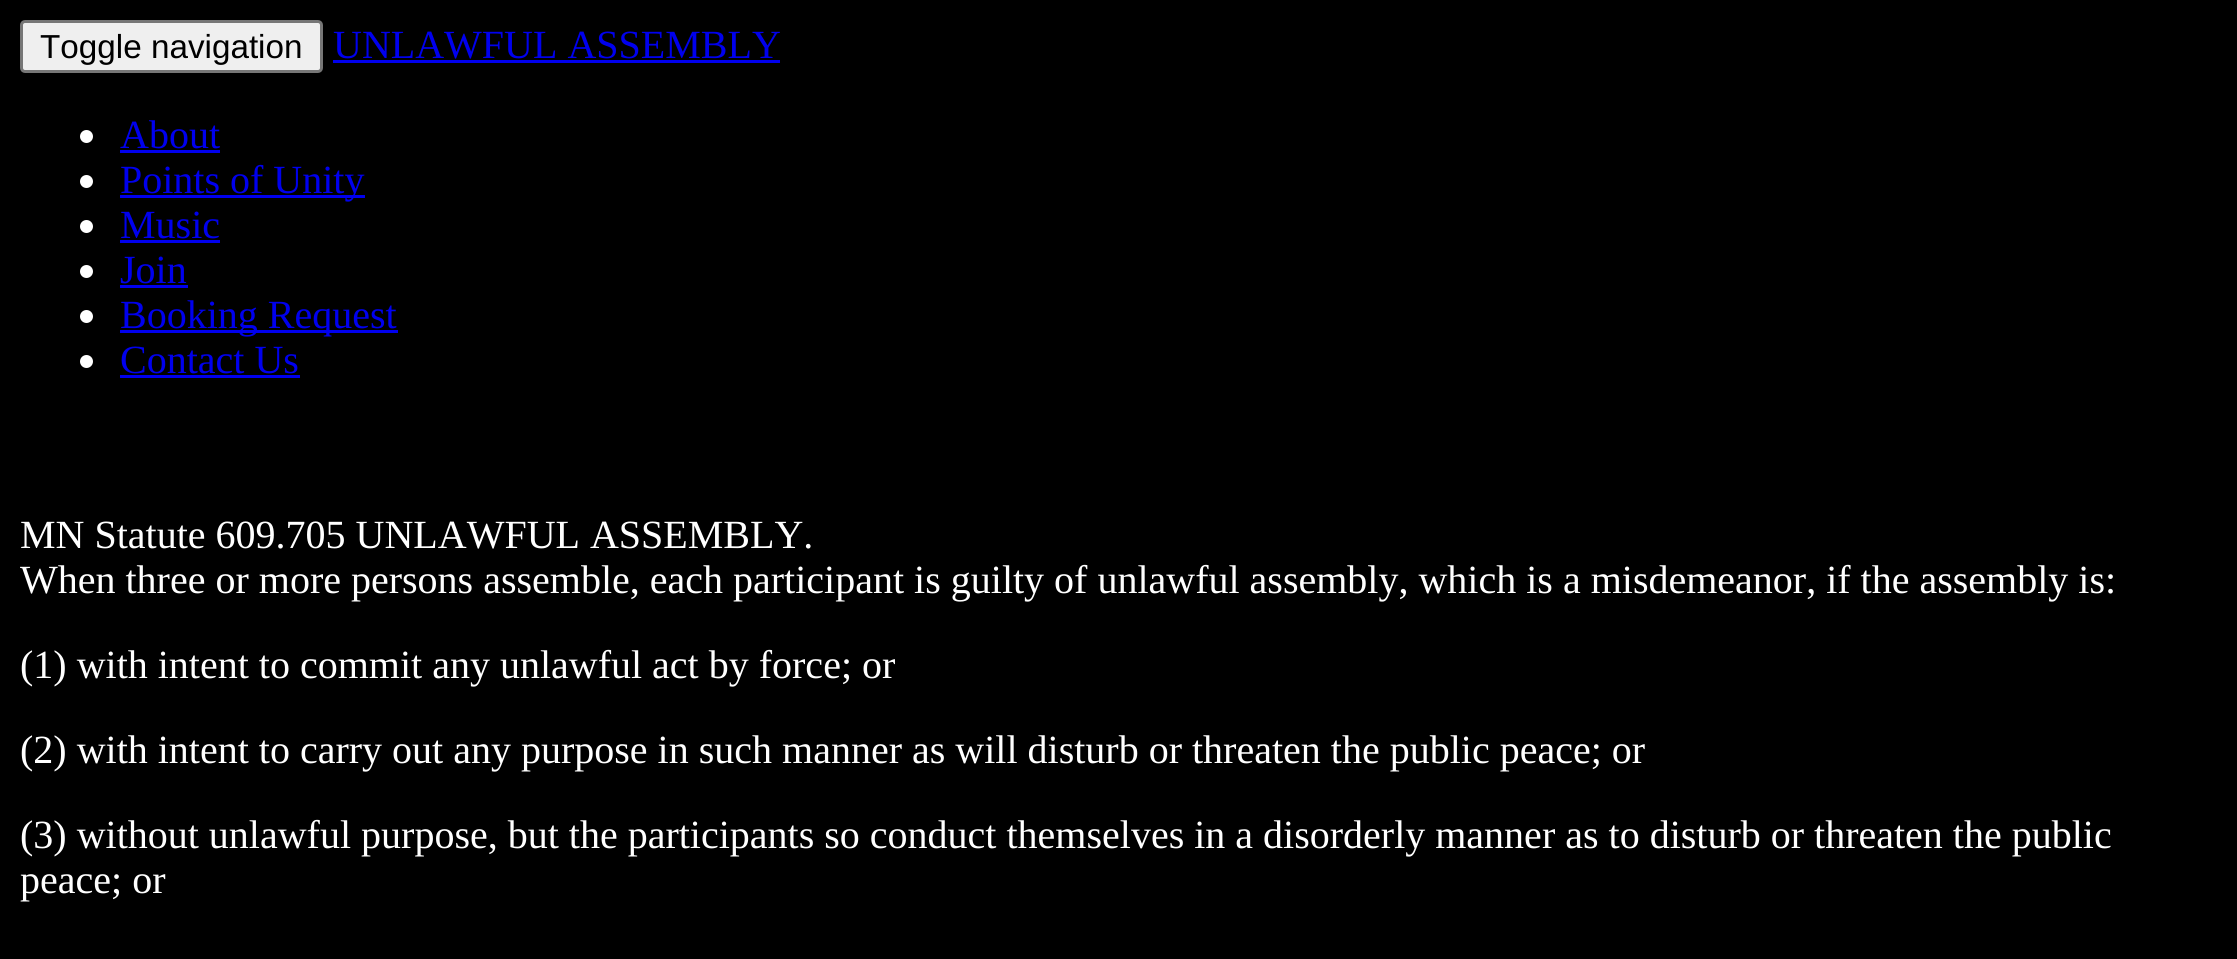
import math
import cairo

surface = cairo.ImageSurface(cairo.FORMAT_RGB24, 2237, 959)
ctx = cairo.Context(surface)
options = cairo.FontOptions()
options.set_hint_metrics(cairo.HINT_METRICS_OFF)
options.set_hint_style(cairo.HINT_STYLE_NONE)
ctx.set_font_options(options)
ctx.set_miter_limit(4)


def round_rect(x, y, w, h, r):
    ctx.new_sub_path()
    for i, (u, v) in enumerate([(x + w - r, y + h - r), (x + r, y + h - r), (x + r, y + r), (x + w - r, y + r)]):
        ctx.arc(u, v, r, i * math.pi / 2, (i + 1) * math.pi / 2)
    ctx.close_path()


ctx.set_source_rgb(0, 0, 0)
ctx.paint()
ctx.set_source_rgb(0.937, 0.937, 0.937)
round_rect(21.5, 21.5, 300, 50, 3.5)
ctx.fill_preserve()
ctx.set_source_rgb(0.463, 0.463, 0.463)
ctx.set_line_width(3)
ctx.stroke()
ctx.select_font_face("Liberation Sans")
ctx.set_font_size(33.25)
ctx.set_source_rgb(0, 0, 0)
ctx.move_to(40, 58)
ctx.show_text("Toggle navigation")
ctx.select_font_face("Liberation Serif")
ctx.set_font_size(40)
ctx.set_source_rgb(0, 0, 0.933)
ctx.move_to(333, 58)
ctx.show_text("UNLAWFUL ASSEMBLY")
ctx.rectangle(333, 60, 447, 3)
ctx.fill()
ctx.set_source_rgb(1, 1, 1)
ctx.arc(86.5, 136.5, 6.5, 0, 2 * math.pi)
ctx.fill()
ctx.set_source_rgb(0, 0, 0.933)
ctx.move_to(120, 148)
ctx.show_text("About")
ctx.rectangle(120, 150, 100, 3)
ctx.fill()
ctx.set_source_rgb(1, 1, 1)
ctx.arc(86.5, 181.5, 6.5, 0, 2 * math.pi)
ctx.fill()
ctx.set_source_rgb(0, 0, 0.933)
ctx.rectangle(120, 195, 245, 3)
ctx.fill()
ctx.move_to(120, 193)
ctx.show_text("Points of Unity")
ctx.set_source_rgb(1, 1, 1)
ctx.new_path()
ctx.arc(86.5, 226.5, 6.5, 0, 2 * math.pi)
ctx.fill()
ctx.set_source_rgb(0, 0, 0.933)
ctx.move_to(120, 238)
ctx.show_text("Music")
ctx.rectangle(120, 240, 100, 3)
ctx.fill()
ctx.set_source_rgb(1, 1, 1)
ctx.arc(86.5, 271.5, 6.5, 0, 2 * math.pi)
ctx.fill()
ctx.set_source_rgb(0, 0, 0.933)
ctx.move_to(120, 283)
ctx.show_text("Join")
ctx.rectangle(120, 285, 68, 3)
ctx.fill()
ctx.set_source_rgb(1, 1, 1)
ctx.arc(86.5, 316.5, 6.5, 0, 2 * math.pi)
ctx.fill()
ctx.set_source_rgb(0, 0, 0.933)
ctx.rectangle(120, 330, 278, 3)
ctx.fill()
ctx.move_to(120, 328)
ctx.show_text("Booking Request")
ctx.set_source_rgb(1, 1, 1)
ctx.new_path()
ctx.arc(86.5, 361.5, 6.5, 0, 2 * math.pi)
ctx.fill()
ctx.set_source_rgb(0, 0, 0.933)
ctx.move_to(120, 373)
ctx.show_text("Contact Us")
ctx.rectangle(120, 375, 180, 3)
ctx.fill()
ctx.set_source_rgb(1, 1, 1)
ctx.move_to(20, 548)
ctx.show_text("MN Statute 609.705 UNLAWFUL ASSEMBLY.")
ctx.move_to(20, 593)
ctx.show_text("When three or more persons assemble, each participant is guilty of unlawful assembly, which is a misdemeanor, if the assembly is:")
ctx.move_to(20, 678)
ctx.show_text("(1) with intent to commit any unlawful act by force; or")
ctx.move_to(20, 763)
ctx.show_text("(2) with intent to carry out any purpose in such manner as will disturb or threaten the public peace; or")
ctx.move_to(20, 848)
ctx.show_text("(3) without unlawful purpose, but the participants so conduct themselves in a disorderly manner as to disturb or threaten the public")
ctx.move_to(20, 893)
ctx.show_text("peace; or")
surface.write_to_png("page.png")
